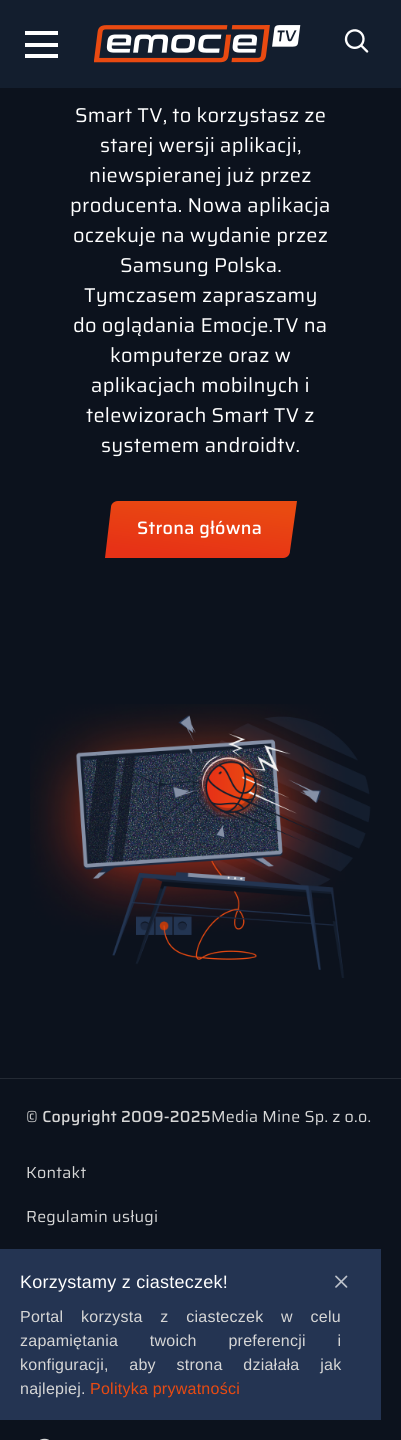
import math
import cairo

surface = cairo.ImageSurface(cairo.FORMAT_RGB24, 401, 1440)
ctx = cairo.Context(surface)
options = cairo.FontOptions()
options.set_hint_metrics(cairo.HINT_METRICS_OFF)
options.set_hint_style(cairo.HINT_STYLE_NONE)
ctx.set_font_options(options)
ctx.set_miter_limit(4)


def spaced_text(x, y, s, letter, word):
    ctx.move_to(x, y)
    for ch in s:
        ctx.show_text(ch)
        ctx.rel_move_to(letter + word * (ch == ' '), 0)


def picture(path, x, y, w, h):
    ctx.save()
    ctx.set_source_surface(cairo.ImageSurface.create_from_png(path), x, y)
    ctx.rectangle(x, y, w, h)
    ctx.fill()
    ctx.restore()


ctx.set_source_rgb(0.047, 0.071, 0.114)
ctx.paint()
ctx.set_source_rgb(0.078, 0.118, 0.18)
ctx.rectangle(0, 0, 401, 88)
ctx.fill()
ctx.set_source_rgb(1, 1, 1)
ctx.rectangle(25, 31, 33, 4)
ctx.fill()
ctx.rectangle(25, 43, 33, 4)
ctx.fill()
ctx.rectangle(25, 54, 33, 4)
ctx.fill()
picture("img1.png", 94, 25, 207, 38)
picture("img2.png", 344, 29, 25, 24)
ctx.select_font_face("Saira")
ctx.set_font_size(20)
spaced_text(75, 122, "Smart TV, to korzystasz ze", 0.25, 0)
spaced_text(100, 152, "starej wersji aplikacji,", 0.25, 0)
spaced_text(89, 182, "niewspieranej już przez", 0.25, 0)
spaced_text(70, 212, "producenta. Nowa aplikacja", 0.25, 0)
spaced_text(73, 242, "oczekuje na wydanie przez", 0.25, 0)
spaced_text(120, 272, "Samsung Polska.", 0.25, 0)
spaced_text(84, 302, "Tymczasem zapraszamy", 0.25, 0)
spaced_text(73, 332, "do oglądania Emocje.TV na", 0.25, 0)
spaced_text(110, 362, "komputerze oraz w", 0.25, 0)
spaced_text(91, 392, "aplikacjach mobilnych i", 0.25, 0)
spaced_text(86, 422, "telewizorach Smart TV z", 0.25, 0)
spaced_text(101, 452, "systemem androidtv.", 0.25, 0)
gradient = cairo.LinearGradient(204, 501, 197, 558)
gradient.add_color_stop_rgba(0, 0.914, 0.29, 0.067, 1)
gradient.add_color_stop_rgba(1, 0.906, 0.196, 0.086, 1)
ctx.set_source(gradient)
ctx.new_path()
ctx.move_to(118, 501)
ctx.line_to(297, 501)
ctx.line_to(290, 551)
ctx.curve_to(290, 555, 287, 558, 283, 558)
ctx.line_to(105, 558)
ctx.line_to(111, 507)
ctx.curve_to(111, 504, 114, 501, 118, 501)
ctx.close_path()
ctx.fill()
ctx.select_font_face("Saira Medium")
ctx.set_font_size(18)
ctx.set_source_rgb(1, 1, 1)
spaced_text(137, 534, "Strona główna", 0.25, 0)
picture("img3.png", 30, 704, 341, 274)
ctx.set_source_rgb(0.141, 0.165, 0.204)
ctx.rectangle(0, 1078, 401, 1)
ctx.fill()
ctx.set_font_size(16)
ctx.set_source_rgb(0.839, 0.839, 0.839)
spaced_text(26, 1122, "© Copyright 2009-2025", 0.25, 0)
ctx.select_font_face("Saira")
spaced_text(211, 1122, "Media Mine Sp. z o.o.", 0.25, 0)
spaced_text(26, 1178, "Kontakt", 0.25, 0)
spaced_text(26, 1222, "Regulamin usługi", 0.25, 0)
picture("img4.png", 40, 1438, 9, 2)
ctx.set_source_rgb(0.141, 0.204, 0.322)
ctx.rectangle(0, 1249, 381, 171)
ctx.fill()
ctx.select_font_face("Liberation Sans")
ctx.set_font_size(18)
ctx.set_source_rgb(1, 1, 1)
spaced_text(20, 1288, "Korzystamy z ciasteczek!", 0.25, 0)
picture("img5.png", 335, 1275, 13, 13)
ctx.set_font_size(16)
ctx.set_source_rgb(0.839, 0.839, 0.839)
spaced_text(20, 1322, "Portal korzysta z ciasteczek w celu", 0.25, 13)
spaced_text(20, 1346, "zapamiętania twoich preferencji i", 0.25, 27)
spaced_text(20, 1370, "konfiguracji, aby strona działała jak", 0.25, 16)
spaced_text(20, 1394, "najlepiej.", 0.25, 0)
ctx.set_source_rgb(0.914, 0.29, 0.067)
spaced_text(90, 1394, "Polityka prywatności", 0.25, 0)
surface.write_to_png("page.png")
